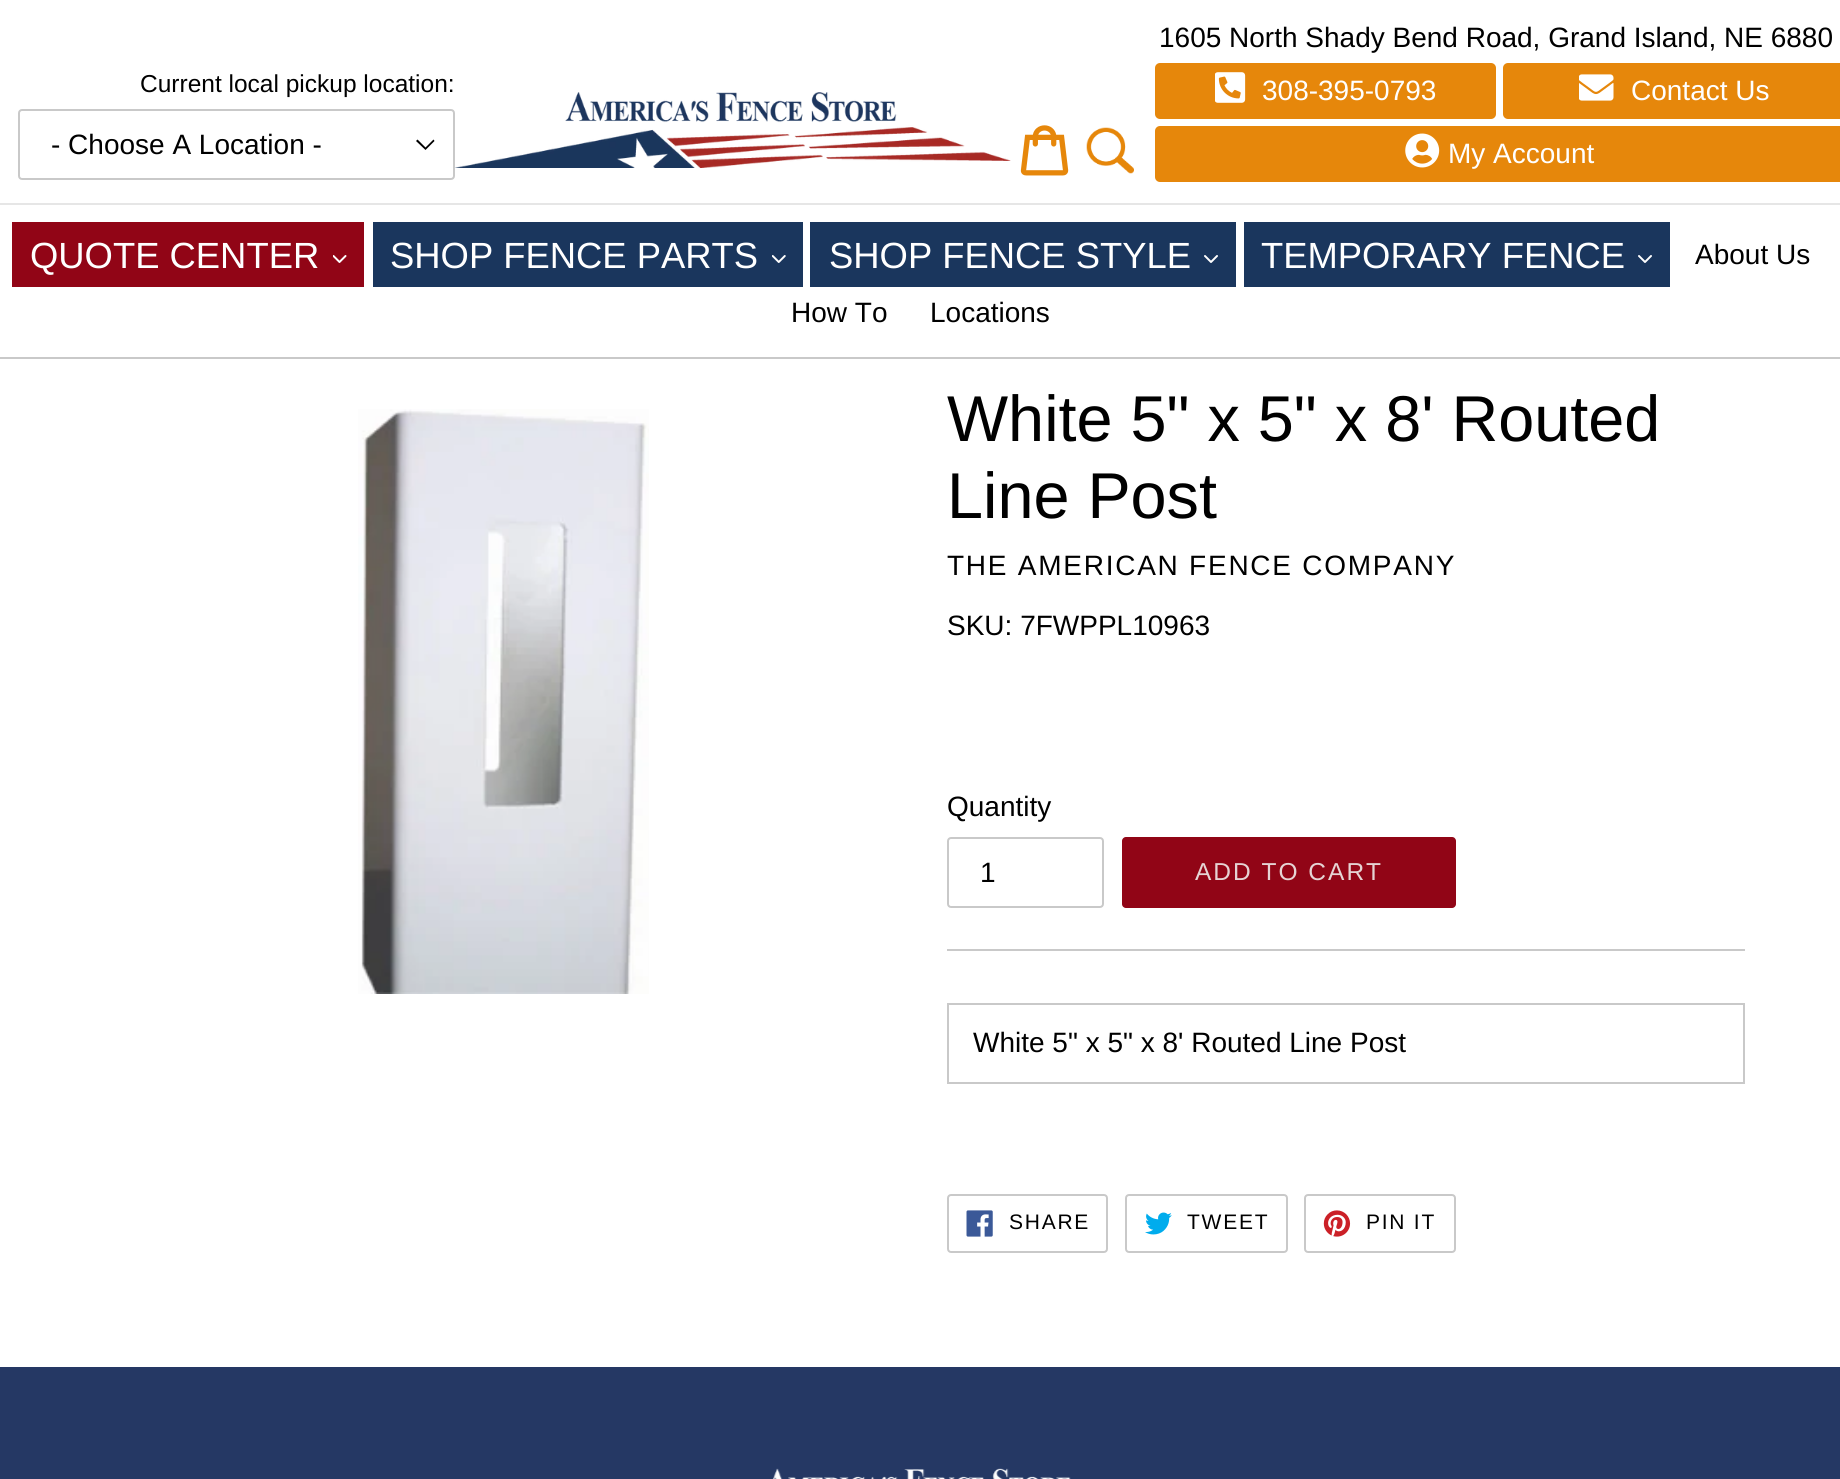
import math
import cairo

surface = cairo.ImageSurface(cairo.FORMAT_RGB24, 1840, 1479)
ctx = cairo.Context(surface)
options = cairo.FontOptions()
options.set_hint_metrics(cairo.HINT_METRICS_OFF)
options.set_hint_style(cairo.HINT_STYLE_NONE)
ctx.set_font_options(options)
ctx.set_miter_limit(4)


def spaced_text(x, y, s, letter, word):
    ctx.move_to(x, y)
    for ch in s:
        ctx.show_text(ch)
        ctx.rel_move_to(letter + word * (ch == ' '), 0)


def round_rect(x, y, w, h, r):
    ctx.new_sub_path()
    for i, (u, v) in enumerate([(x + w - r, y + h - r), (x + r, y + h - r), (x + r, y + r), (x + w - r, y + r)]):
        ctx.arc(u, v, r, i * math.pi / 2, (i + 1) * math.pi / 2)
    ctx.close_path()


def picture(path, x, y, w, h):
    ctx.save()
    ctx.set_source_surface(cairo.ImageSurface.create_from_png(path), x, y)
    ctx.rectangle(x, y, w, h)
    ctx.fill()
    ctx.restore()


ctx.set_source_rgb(1, 1, 1)
ctx.paint()
ctx.set_source_rgb(0.902, 0.902, 0.902)
ctx.rectangle(0, 203, 1840, 2)
ctx.fill()
ctx.select_font_face("Liberation Sans")
ctx.set_font_size(24.5)
ctx.set_source_rgb(0, 0, 0)
ctx.move_to(140, 92)
ctx.show_text("Current local pickup location:")
ctx.new_path()
ctx.move_to(425.5, 150)
ctx.line_to(416, 141)
ctx.line_to(417.5, 139.5)
ctx.line_to(425.5, 147.5)
ctx.line_to(433.5, 139.5)
ctx.line_to(434.5, 141)
ctx.close_path()
ctx.fill()
round_rect(19, 110, 435, 69, 3)
ctx.set_source_rgb(0.788, 0.788, 0.788)
ctx.stroke()
ctx.set_font_size(28)
ctx.set_source_rgb(0, 0, 0)
ctx.move_to(51, 154)
ctx.show_text("- Choose A Location -")
picture("img1.png", 455, 92, 556, 76)
picture("img2.png", 1020, 125, 49, 51)
picture("img3.png", 1086, 127, 48, 47)
ctx.move_to(1159, 47)
ctx.show_text("1605 North Shady Bend Road, Grand Island, NE 6880")
ctx.set_source_rgb(0.902, 0.529, 0.043)
round_rect(1155, 63, 341, 56, 5)
ctx.fill()
picture("img4.png", 1215, 72, 31, 31)
ctx.set_source_rgb(1, 1, 1)
ctx.move_to(1262, 100)
ctx.show_text("308-395-0793")
ctx.set_source_rgb(0.902, 0.529, 0.043)
round_rect(1503, 63, 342, 56, 5)
ctx.fill()
picture("img5.png", 1579, 74, 35, 27)
ctx.set_source_rgb(1, 1, 1)
ctx.move_to(1631, 100)
ctx.show_text("Contact Us")
ctx.set_source_rgb(0.902, 0.529, 0.043)
round_rect(1155, 126, 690, 56, 5)
ctx.fill()
picture("img6.png", 1405, 133, 35, 35)
ctx.set_source_rgb(1, 1, 1)
ctx.move_to(1448, 163)
ctx.show_text("My Account")
ctx.set_source_rgb(0.788, 0.788, 0.788)
ctx.rectangle(0, 357, 1840, 2)
ctx.fill()
ctx.set_source_rgb(0.569, 0.02, 0.086)
ctx.rectangle(12, 222, 352, 65)
ctx.fill()
ctx.set_font_size(36.4)
ctx.set_source_rgb(1, 1, 1)
ctx.move_to(30, 268)
ctx.show_text("QUOTE CENTER")
picture("img7.png", 333, 255, 14, 8)
ctx.set_source_rgb(0.102, 0.212, 0.365)
ctx.rectangle(373, 222, 430, 65)
ctx.fill()
ctx.set_source_rgb(1, 1, 1)
ctx.move_to(390, 268)
ctx.show_text("SHOP FENCE PARTS")
picture("img8.png", 772, 255, 14, 8)
ctx.set_source_rgb(0.102, 0.212, 0.365)
ctx.rectangle(810, 222, 426, 65)
ctx.fill()
ctx.set_source_rgb(1, 1, 1)
ctx.move_to(829, 268)
ctx.show_text("SHOP FENCE STYLE")
picture("img9.png", 1204, 255, 14, 8)
ctx.set_source_rgb(0.102, 0.212, 0.365)
ctx.rectangle(1244, 222, 426, 65)
ctx.fill()
ctx.set_source_rgb(1, 1, 1)
ctx.move_to(1261, 268)
ctx.show_text("TEMPORARY FENCE")
picture("img9.png", 1638, 255, 14, 8)
ctx.set_font_size(28)
ctx.set_source_rgb(0, 0, 0)
ctx.move_to(1695, 264)
ctx.show_text("About Us")
ctx.move_to(791, 322)
ctx.show_text("How To")
ctx.move_to(930, 322)
ctx.show_text("Locations")
picture("img10.png", 358, 409, 291, 585)
ctx.set_font_size(64.75)
ctx.move_to(947, 441)
ctx.show_text("White 5\" x 5\" x 8' Routed")
ctx.move_to(947, 518)
ctx.show_text("Line Post")
ctx.set_font_size(28)
spaced_text(947, 575, "THE AMERICAN FENCE COMPANY", 1.75, 0)
ctx.move_to(947, 635)
ctx.show_text("SKU: 7FWPPL10963")
ctx.move_to(947, 816)
ctx.show_text("Quantity")
round_rect(948, 838, 155, 69, 3)
ctx.set_source_rgb(0.788, 0.788, 0.788)
ctx.stroke()
ctx.set_source_rgb(0, 0, 0)
ctx.move_to(980, 882)
ctx.show_text("1")
ctx.set_source_rgb(0.569, 0.02, 0.086)
round_rect(1122, 837, 334, 71, 4)
ctx.fill()
ctx.set_font_size(24.5)
ctx.set_source_rgb(0.902, 0.831, 0.831)
spaced_text(1195, 880, "ADD TO CART", 2, 0)
ctx.set_source_rgb(0.788, 0.788, 0.788)
ctx.rectangle(947, 949, 798, 2)
ctx.fill()
ctx.rectangle(947, 1003, 798, 2)
ctx.fill()
ctx.rectangle(1743, 1003, 2, 80)
ctx.fill()
ctx.rectangle(947, 1082, 798, 2)
ctx.fill()
ctx.rectangle(947, 1003, 2, 80)
ctx.fill()
ctx.set_font_size(28)
ctx.set_source_rgb(0, 0, 0)
ctx.move_to(973, 1052)
ctx.show_text("White 5\" x 5\" x 8' Routed Line Post")
round_rect(948, 1195, 159, 57, 3)
ctx.set_source_rgb(0.788, 0.788, 0.788)
ctx.stroke()
picture("img11.png", 966, 1210, 27, 27)
ctx.set_font_size(21)
ctx.set_source_rgb(0, 0, 0)
spaced_text(1009, 1229, "SHARE", 1.75, 0)
round_rect(1126, 1195, 161, 57, 3)
ctx.set_source_rgb(0.788, 0.788, 0.788)
ctx.stroke()
picture("img12.png", 1145, 1212, 27, 23)
ctx.set_source_rgb(0, 0, 0)
spaced_text(1187, 1229, "TWEET", 1.75, 0)
round_rect(1305, 1195, 150, 57, 3)
ctx.set_source_rgb(0.788, 0.788, 0.788)
ctx.stroke()
picture("img13.png", 1323, 1210, 28, 27)
ctx.set_source_rgb(0, 0, 0)
spaced_text(1366, 1229, "PIN IT", 1.75, 0)
ctx.set_source_rgb(0.145, 0.22, 0.392)
ctx.rectangle(0, 1367, 1840, 112)
ctx.fill()
picture("img14.png", 772, 1468, 299, 11)
surface.write_to_png("page.png")
